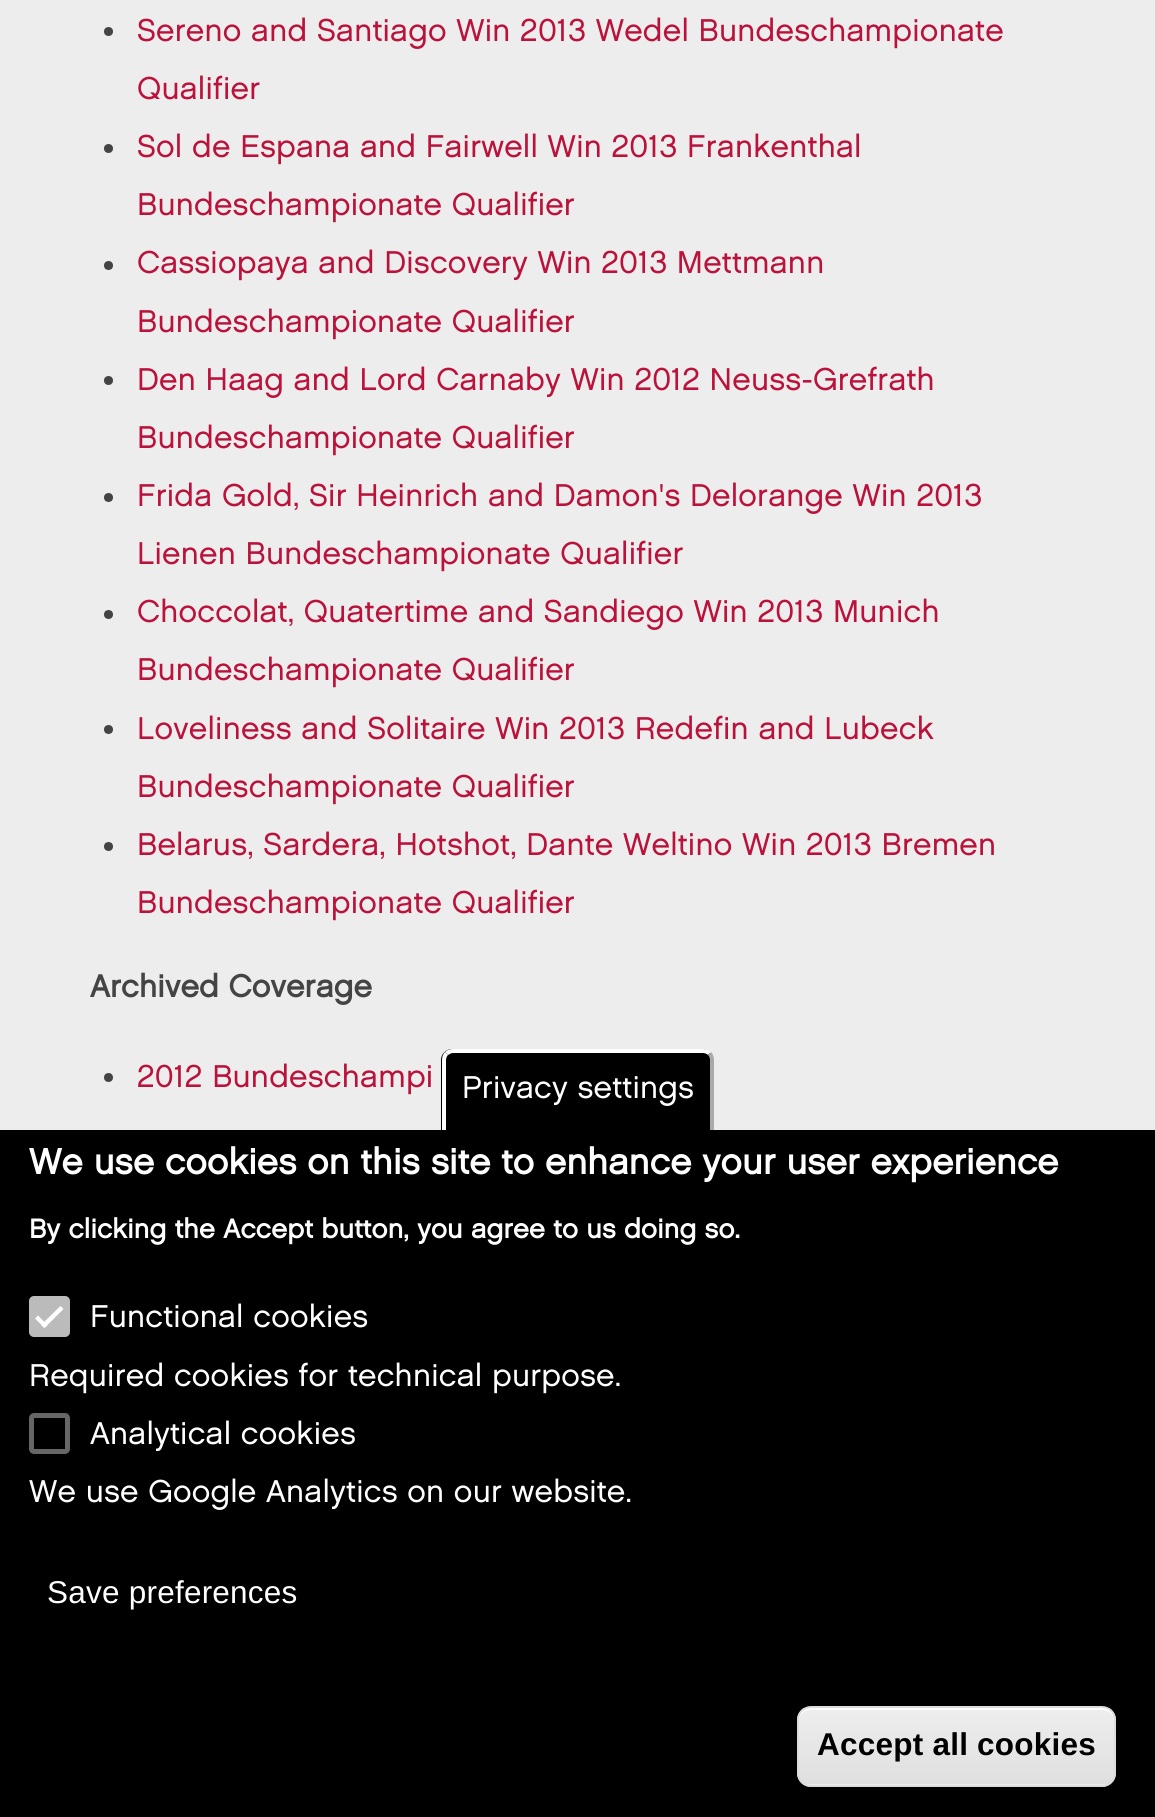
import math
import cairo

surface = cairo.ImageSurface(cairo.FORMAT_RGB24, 1155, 1817)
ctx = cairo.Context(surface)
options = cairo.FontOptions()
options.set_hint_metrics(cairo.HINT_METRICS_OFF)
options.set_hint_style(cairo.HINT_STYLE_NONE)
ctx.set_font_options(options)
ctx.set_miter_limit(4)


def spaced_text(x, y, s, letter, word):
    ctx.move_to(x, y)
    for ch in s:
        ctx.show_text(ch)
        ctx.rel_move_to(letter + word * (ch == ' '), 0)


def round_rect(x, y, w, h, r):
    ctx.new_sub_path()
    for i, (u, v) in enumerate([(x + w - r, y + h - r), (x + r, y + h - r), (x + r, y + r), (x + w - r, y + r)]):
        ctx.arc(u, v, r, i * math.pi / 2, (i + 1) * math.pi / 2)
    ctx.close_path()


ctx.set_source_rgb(0.929, 0.929, 0.929)
ctx.paint()
ctx.set_source_rgb(0.267, 0.267, 0.267)
ctx.arc(108.5, 31.5, 4.5, 0, 2 * math.pi)
ctx.fill()
ctx.select_font_face("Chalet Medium")
ctx.set_font_size(31.5)
ctx.set_source_rgb(0.733, 0.071, 0.231)
spaced_text(137, 41, "Sereno and Santiago Win 2013 Wedel Bundeschampionate", 0.23, 0)
spaced_text(137, 99, "Qualifier", 0.23, 0)
ctx.set_source_rgb(0.267, 0.267, 0.267)
ctx.new_path()
ctx.arc(108.5, 148.5, 4.5, 0, 2 * math.pi)
ctx.fill()
ctx.set_source_rgb(0.733, 0.071, 0.231)
spaced_text(137, 157, "Sol de Espana and Fairwell Win 2013 Frankenthal", 0.23, 0)
spaced_text(137, 215, "Bundeschampionate Qualifier", 0.23, 0)
ctx.set_source_rgb(0.267, 0.267, 0.267)
ctx.new_path()
ctx.arc(108.5, 265.5, 4.5, 0, 2 * math.pi)
ctx.fill()
ctx.set_source_rgb(0.733, 0.071, 0.231)
spaced_text(137, 273, "Cassiopaya and Discovery Win 2013 Mettmann", 0.23, 0)
spaced_text(137, 332, "Bundeschampionate Qualifier", 0.23, 0)
ctx.set_source_rgb(0.267, 0.267, 0.267)
ctx.new_path()
ctx.arc(108.5, 380.5, 4.5, 0, 2 * math.pi)
ctx.fill()
ctx.set_source_rgb(0.733, 0.071, 0.231)
spaced_text(137, 390, "Den Haag and Lord Carnaby Win 2012 Neuss-Grefrath", 0.23, 0)
spaced_text(137, 448, "Bundeschampionate Qualifier", 0.23, 0)
ctx.set_source_rgb(0.267, 0.267, 0.267)
ctx.new_path()
ctx.arc(108.5, 497.5, 4.5, 0, 2 * math.pi)
ctx.fill()
ctx.set_source_rgb(0.733, 0.071, 0.231)
spaced_text(137, 506, "Frida Gold, Sir Heinrich and Damon's Delorange Win 2013", 0.23, 0)
spaced_text(137, 564, "Lienen Bundeschampionate Qualifier", 0.23, 0)
ctx.set_source_rgb(0.267, 0.267, 0.267)
ctx.new_path()
ctx.arc(108.5, 614.5, 4.5, 0, 2 * math.pi)
ctx.fill()
ctx.set_source_rgb(0.733, 0.071, 0.231)
spaced_text(137, 622, "Choccolat, Quatertime and Sandiego Win 2013 Munich", 0.23, 0)
spaced_text(137, 680, "Bundeschampionate Qualifier", 0.23, 0)
ctx.set_source_rgb(0.267, 0.267, 0.267)
ctx.new_path()
ctx.arc(108.5, 729.5, 4.5, 0, 2 * math.pi)
ctx.fill()
ctx.set_source_rgb(0.733, 0.071, 0.231)
spaced_text(137, 739, "Loveliness and Solitaire Win 2013 Redefin and Lubeck", 0.23, 0)
spaced_text(137, 797, "Bundeschampionate Qualifier", 0.23, 0)
ctx.set_source_rgb(0.267, 0.267, 0.267)
ctx.new_path()
ctx.arc(108.5, 846.5, 4.5, 0, 2 * math.pi)
ctx.fill()
ctx.set_source_rgb(0.733, 0.071, 0.231)
spaced_text(137, 855, "Belarus, Sardera, Hotshot, Dante Weltino Win 2013 Bremen", 0.23, 0)
spaced_text(137, 913, "Bundeschampionate Qualifier", 0.23, 0)
ctx.select_font_face("Chalet", cairo.FONT_SLANT_NORMAL, cairo.FONT_WEIGHT_BOLD)
ctx.set_source_rgb(0.267, 0.267, 0.267)
spaced_text(90, 997, "Archived Coverage", 0.23, 0)
ctx.new_path()
ctx.arc(108.5, 1077.5, 4.5, 0, 2 * math.pi)
ctx.fill()
ctx.select_font_face("Chalet Medium")
ctx.set_source_rgb(0.733, 0.071, 0.231)
spaced_text(137, 1087, "2012 Bundeschampi", 0.23, 0)
ctx.set_source_rgb(0, 0, 0)
ctx.rectangle(0, 1130, 1155, 687)
ctx.fill()
ctx.new_path()
ctx.move_to(452, 1049)
ctx.line_to(702, 1049)
ctx.curve_to(708, 1049, 713, 1054, 713, 1060)
ctx.line_to(713, 1130)
ctx.line_to(441, 1130)
ctx.line_to(441, 1060)
ctx.curve_to(441, 1054, 446, 1049, 452, 1049)
ctx.close_path()
ctx.fill()
ctx.set_source_rgb(1, 1, 1)
ctx.new_path()
ctx.move_to(453, 1049)
ctx.line_to(703, 1049)
ctx.curve_to(706, 1049, 709, 1050, 711, 1052)
ctx.line_to(708, 1055)
ctx.curve_to(707, 1054, 705, 1053, 703, 1053)
ctx.line_to(453, 1053)
ctx.curve_to(451, 1053, 450, 1054, 448, 1055)
ctx.line_to(445, 1052)
ctx.curve_to(447, 1050, 450, 1049, 453, 1049)
ctx.close_path()
ctx.fill()
ctx.set_source_rgb(0.667, 0.667, 0.667)
ctx.new_path()
ctx.move_to(710, 1130)
ctx.line_to(710, 1060)
ctx.curve_to(710, 1058, 709, 1056, 708, 1055)
ctx.line_to(711, 1052)
ctx.curve_to(713, 1054, 714, 1057, 714, 1060)
ctx.line_to(714, 1130)
ctx.close_path()
ctx.fill()
ctx.set_source_rgb(1, 1, 1)
ctx.new_path()
ctx.move_to(446, 1130)
ctx.line_to(442, 1130)
ctx.line_to(442, 1060)
ctx.curve_to(442, 1057, 443, 1054, 445, 1052)
ctx.line_to(448, 1055)
ctx.curve_to(447, 1056, 446, 1058, 446, 1060)
ctx.close_path()
ctx.fill()
spaced_text(462, 1098, "Privacy settings", 0.23, 0)
ctx.select_font_face("Chalet", cairo.FONT_SLANT_NORMAL, cairo.FONT_WEIGHT_BOLD)
ctx.set_font_size(36)
spaced_text(29, 1174, "We use cookies on this site to enhance your user experience", 0.23, 0)
ctx.set_font_size(27)
spaced_text(29, 1238, "By clicking the Accept button, you agree to us doing so.", 0.23, 0)
ctx.set_source_rgb(0.733, 0.733, 0.733)
round_rect(29, 1296, 41, 41, 5)
ctx.fill()
ctx.set_source_rgb(1, 1, 1)
ctx.new_path()
ctx.move_to(60.5, 1306)
ctx.line_to(63.5, 1309)
ctx.line_to(44.5, 1328)
ctx.line_to(41, 1325)
ctx.close_path()
ctx.fill()
ctx.new_path()
ctx.move_to(38, 1315.5)
ctx.line_to(47.5, 1325)
ctx.line_to(44.5, 1328)
ctx.line_to(35, 1318.5)
ctx.close_path()
ctx.fill()
ctx.select_font_face("Chalet Medium")
ctx.set_font_size(31.5)
spaced_text(90, 1327, "Functional cookies", 0.23, 0)
spaced_text(29, 1386, "Required cookies for technical purpose.", 0.23, 0)
round_rect(31.5, 1415.5, 36, 36, 2.5)
ctx.set_source_rgb(0.4, 0.4, 0.4)
ctx.set_line_width(5)
ctx.stroke()
ctx.set_source_rgb(1, 1, 1)
spaced_text(90, 1444, "Analytical cookies", 0.23, 0)
spaced_text(29, 1502, "We use Google Analytics on our website.", 0.23, 0)
ctx.select_font_face("Liberation Sans")
spaced_text(47, 1603, "Save preferences", 0.23, 0)
ctx.save()
round_rect(797, 1706, 319, 81, 14)
ctx.clip()
gradient = cairo.LinearGradient(956, 1708, 956, 1784)
gradient.add_color_stop_rgba(0.05, 0.929, 0.929, 0.929, 1)
gradient.add_color_stop_rgba(1, 0.875, 0.875, 0.875, 1)
ctx.set_source(gradient)
ctx.rectangle(797, 1708, 319, 76)
ctx.fill()
gradient = cairo.LinearGradient(956, 1784, 956, 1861)
gradient.add_color_stop_rgba(0.05, 0.929, 0.929, 0.929, 1)
gradient.add_color_stop_rgba(1, 0.875, 0.875, 0.875, 1)
ctx.set_source(gradient)
ctx.rectangle(797, 1784, 319, 3)
ctx.fill()
ctx.restore()
ctx.new_path()
ctx.move_to(810, 1710)
ctx.line_to(1102, 1710)
ctx.curve_to(1109, 1710, 1114, 1715, 1114, 1721)
ctx.line_to(1114, 1719)
ctx.curve_to(1114, 1713, 1109, 1708, 1103, 1708)
ctx.line_to(810, 1708)
ctx.curve_to(804, 1708, 799, 1713, 799, 1719)
ctx.line_to(799, 1721)
ctx.curve_to(799, 1715, 804, 1710, 810, 1710)
ctx.close_path()
ctx.fill()
round_rect(798, 1707, 317, 79, 13)
ctx.set_source_rgb(0.863, 0.863, 0.863)
ctx.set_line_width(2)
ctx.stroke()
ctx.select_font_face("Liberation Sans", cairo.FONT_SLANT_NORMAL, cairo.FONT_WEIGHT_BOLD)
ctx.set_source_rgb(0, 0, 0)
spaced_text(817, 1755, "Accept all cookies", 0.23, 0)
surface.write_to_png("page.png")
